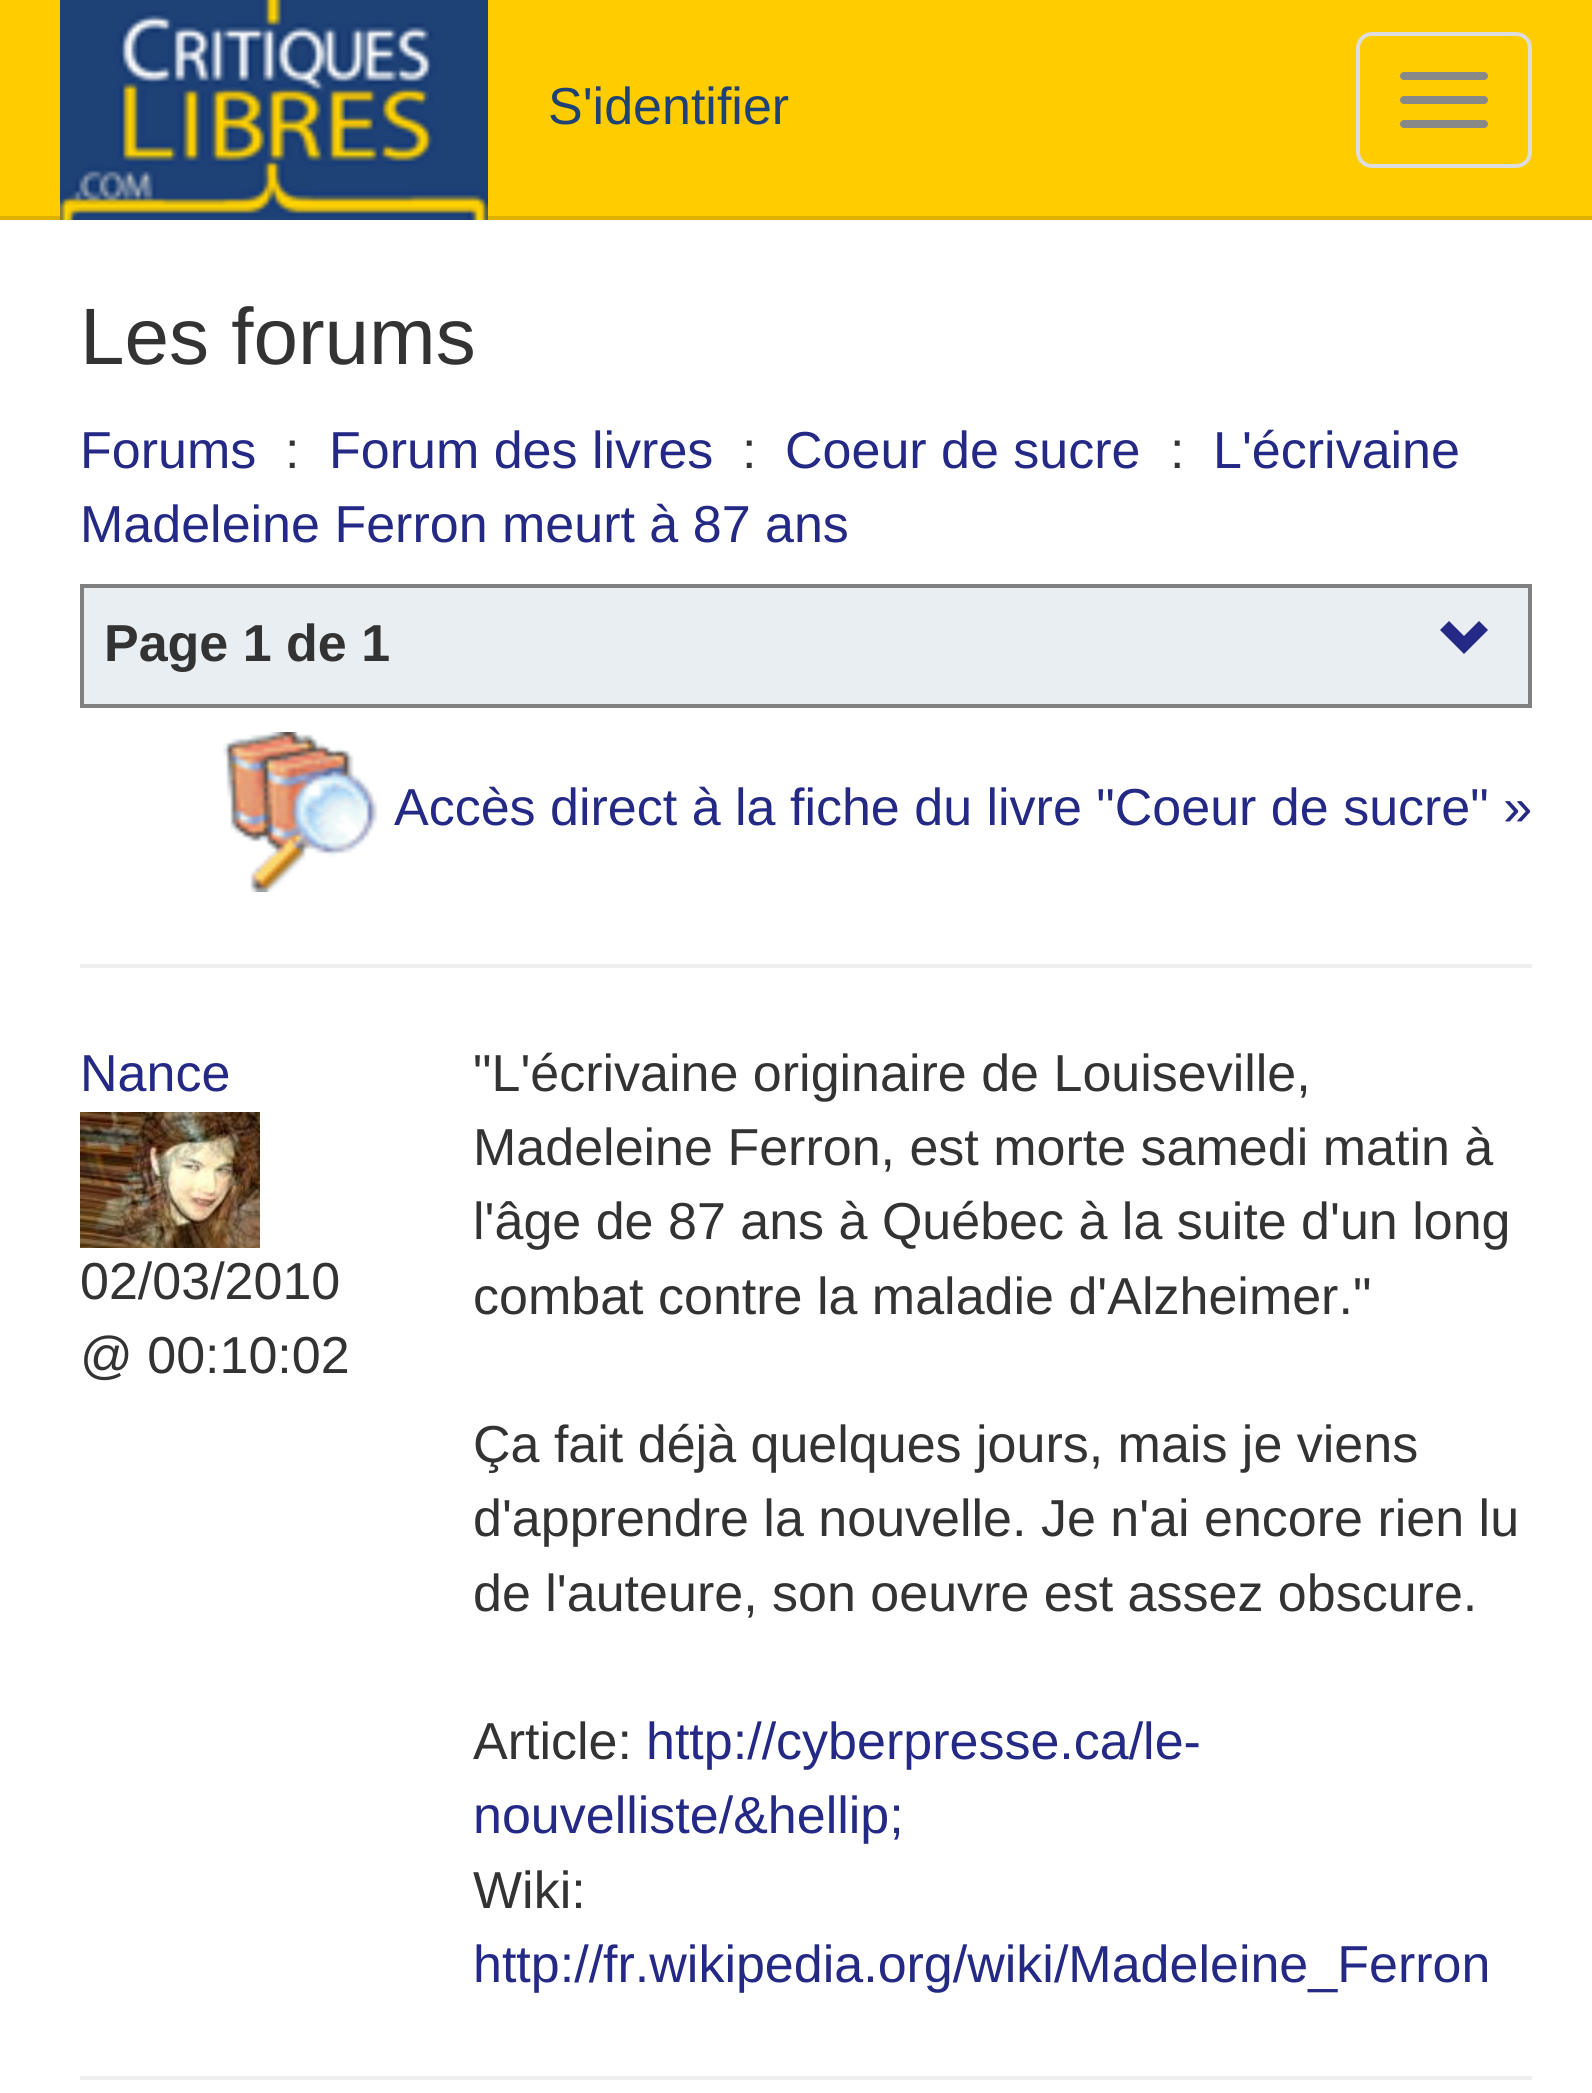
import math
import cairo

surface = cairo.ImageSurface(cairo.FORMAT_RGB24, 1592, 2093)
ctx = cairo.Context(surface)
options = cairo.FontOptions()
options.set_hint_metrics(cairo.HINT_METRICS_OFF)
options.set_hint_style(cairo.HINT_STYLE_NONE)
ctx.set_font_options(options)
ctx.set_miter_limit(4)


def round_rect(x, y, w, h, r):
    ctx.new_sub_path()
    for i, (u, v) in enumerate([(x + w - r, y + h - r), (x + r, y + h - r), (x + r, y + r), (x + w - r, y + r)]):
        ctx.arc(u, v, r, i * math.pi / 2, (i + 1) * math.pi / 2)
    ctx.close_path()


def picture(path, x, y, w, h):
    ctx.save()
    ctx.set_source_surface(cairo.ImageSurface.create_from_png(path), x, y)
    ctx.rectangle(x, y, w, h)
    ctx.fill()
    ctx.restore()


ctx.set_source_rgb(1, 1, 1)
ctx.paint()
ctx.set_source_rgb(1, 0.8, 0)
ctx.rectangle(0, 0, 1592, 216)
ctx.fill()
ctx.set_source_rgb(0.871, 0.694, 0)
ctx.rectangle(0, 216, 1592, 4)
ctx.fill()
picture("img1.png", 60, 0, 428, 220)
ctx.select_font_face("Liberation Sans")
ctx.set_font_size(52)
ctx.set_source_rgb(0.118, 0.255, 0.463)
ctx.move_to(548, 124)
ctx.show_text("S'identifier")
round_rect(1358, 34, 172, 132, 14)
ctx.set_source_rgb(0.867, 0.867, 0.867)
ctx.set_line_width(4)
ctx.stroke()
ctx.set_source_rgb(0.533, 0.533, 0.533)
round_rect(1400, 72, 88, 8, 4)
ctx.fill()
round_rect(1400, 96, 88, 8, 4)
ctx.fill()
round_rect(1400, 120, 88, 8, 4)
ctx.fill()
ctx.set_font_size(80)
ctx.set_source_rgb(0.2, 0.2, 0.2)
ctx.move_to(80, 364)
ctx.show_text("Les forums")
ctx.set_font_size(52)
ctx.set_source_rgb(0.137, 0.161, 0.518)
ctx.move_to(80, 468)
ctx.show_text("Forums")
ctx.set_source_rgb(0.2, 0.2, 0.2)
ctx.move_to(285, 468)
ctx.show_text(":")
ctx.set_source_rgb(0.137, 0.161, 0.518)
ctx.move_to(329, 468)
ctx.show_text("Forum des livres")
ctx.set_source_rgb(0.2, 0.2, 0.2)
ctx.move_to(742, 468)
ctx.show_text(":")
ctx.set_source_rgb(0.137, 0.161, 0.518)
ctx.move_to(785, 468)
ctx.show_text("Coeur de sucre")
ctx.set_source_rgb(0.2, 0.2, 0.2)
ctx.move_to(1170, 468)
ctx.show_text(":")
ctx.set_source_rgb(0.137, 0.161, 0.518)
ctx.move_to(1213, 468)
ctx.show_text("L'écrivaine")
ctx.move_to(80, 542)
ctx.show_text("Madeleine Ferron meurt à 87 ans")
ctx.set_source_rgb(0.91, 0.933, 0.945)
ctx.rectangle(82, 586, 1448, 120)
ctx.fill_preserve()
ctx.set_source_rgb(0.502, 0.502, 0.502)
ctx.stroke()
ctx.select_font_face("Liberation Sans", cairo.FONT_SLANT_NORMAL, cairo.FONT_WEIGHT_BOLD)
ctx.set_source_rgb(0.2, 0.2, 0.2)
ctx.move_to(104, 661)
ctx.show_text("Page 1 de 1")
ctx.set_source_rgb(0.137, 0.161, 0.518)
ctx.new_path()
ctx.move_to(1488, 630)
ctx.line_to(1464, 654)
ctx.line_to(1440, 630)
ctx.line_to(1449, 621)
ctx.line_to(1464, 636)
ctx.line_to(1479, 621)
ctx.close_path()
ctx.fill()
picture("img2.png", 223, 732, 155, 160)
ctx.select_font_face("Liberation Sans")
ctx.move_to(394, 825)
ctx.show_text("Accès direct à la fiche du livre \"Coeur de sucre\" »")
ctx.set_source_rgb(0.933, 0.933, 0.933)
ctx.rectangle(80, 964, 1452, 4)
ctx.fill()
ctx.set_source_rgb(0.137, 0.161, 0.518)
ctx.move_to(80, 1091)
ctx.show_text("Nance")
picture("img3.png", 80, 1112, 180, 136)
ctx.set_source_rgb(0.2, 0.2, 0.2)
ctx.move_to(80, 1299)
ctx.show_text("02/03/2010")
ctx.move_to(80, 1373)
ctx.show_text("@ 00:10:02")
ctx.move_to(473, 1091)
ctx.show_text("\"L'écrivaine originaire de Louiseville,")
ctx.move_to(473, 1165)
ctx.show_text("Madeleine Ferron, est morte samedi matin à")
ctx.move_to(473, 1239)
ctx.show_text("l'âge de 87 ans à Québec à la suite d'un long")
ctx.move_to(473, 1314)
ctx.show_text("combat contre la maladie d'Alzheimer.\"")
ctx.move_to(473, 1462)
ctx.show_text("Ça fait déjà quelques jours, mais je viens")
ctx.move_to(473, 1536)
ctx.show_text("d'apprendre la nouvelle. Je n'ai encore rien lu")
ctx.move_to(473, 1611)
ctx.show_text("de l'auteure, son oeuvre est assez obscure.")
ctx.move_to(473, 1759)
ctx.show_text("Article:")
ctx.set_source_rgb(0.137, 0.161, 0.518)
ctx.move_to(646, 1759)
ctx.show_text("http://cyberpresse.ca/le-")
ctx.move_to(473, 1833)
ctx.show_text("nouvelliste/&hellip;")
ctx.set_source_rgb(0.2, 0.2, 0.2)
ctx.move_to(473, 1908)
ctx.show_text("Wiki:")
ctx.set_source_rgb(0.137, 0.161, 0.518)
ctx.move_to(473, 1982)
ctx.show_text("http://fr.wikipedia.org/wiki/Madeleine_Ferron")
ctx.set_source_rgb(0.933, 0.933, 0.933)
ctx.rectangle(80, 2076, 1452, 4)
ctx.fill()
surface.write_to_png("page.png")
